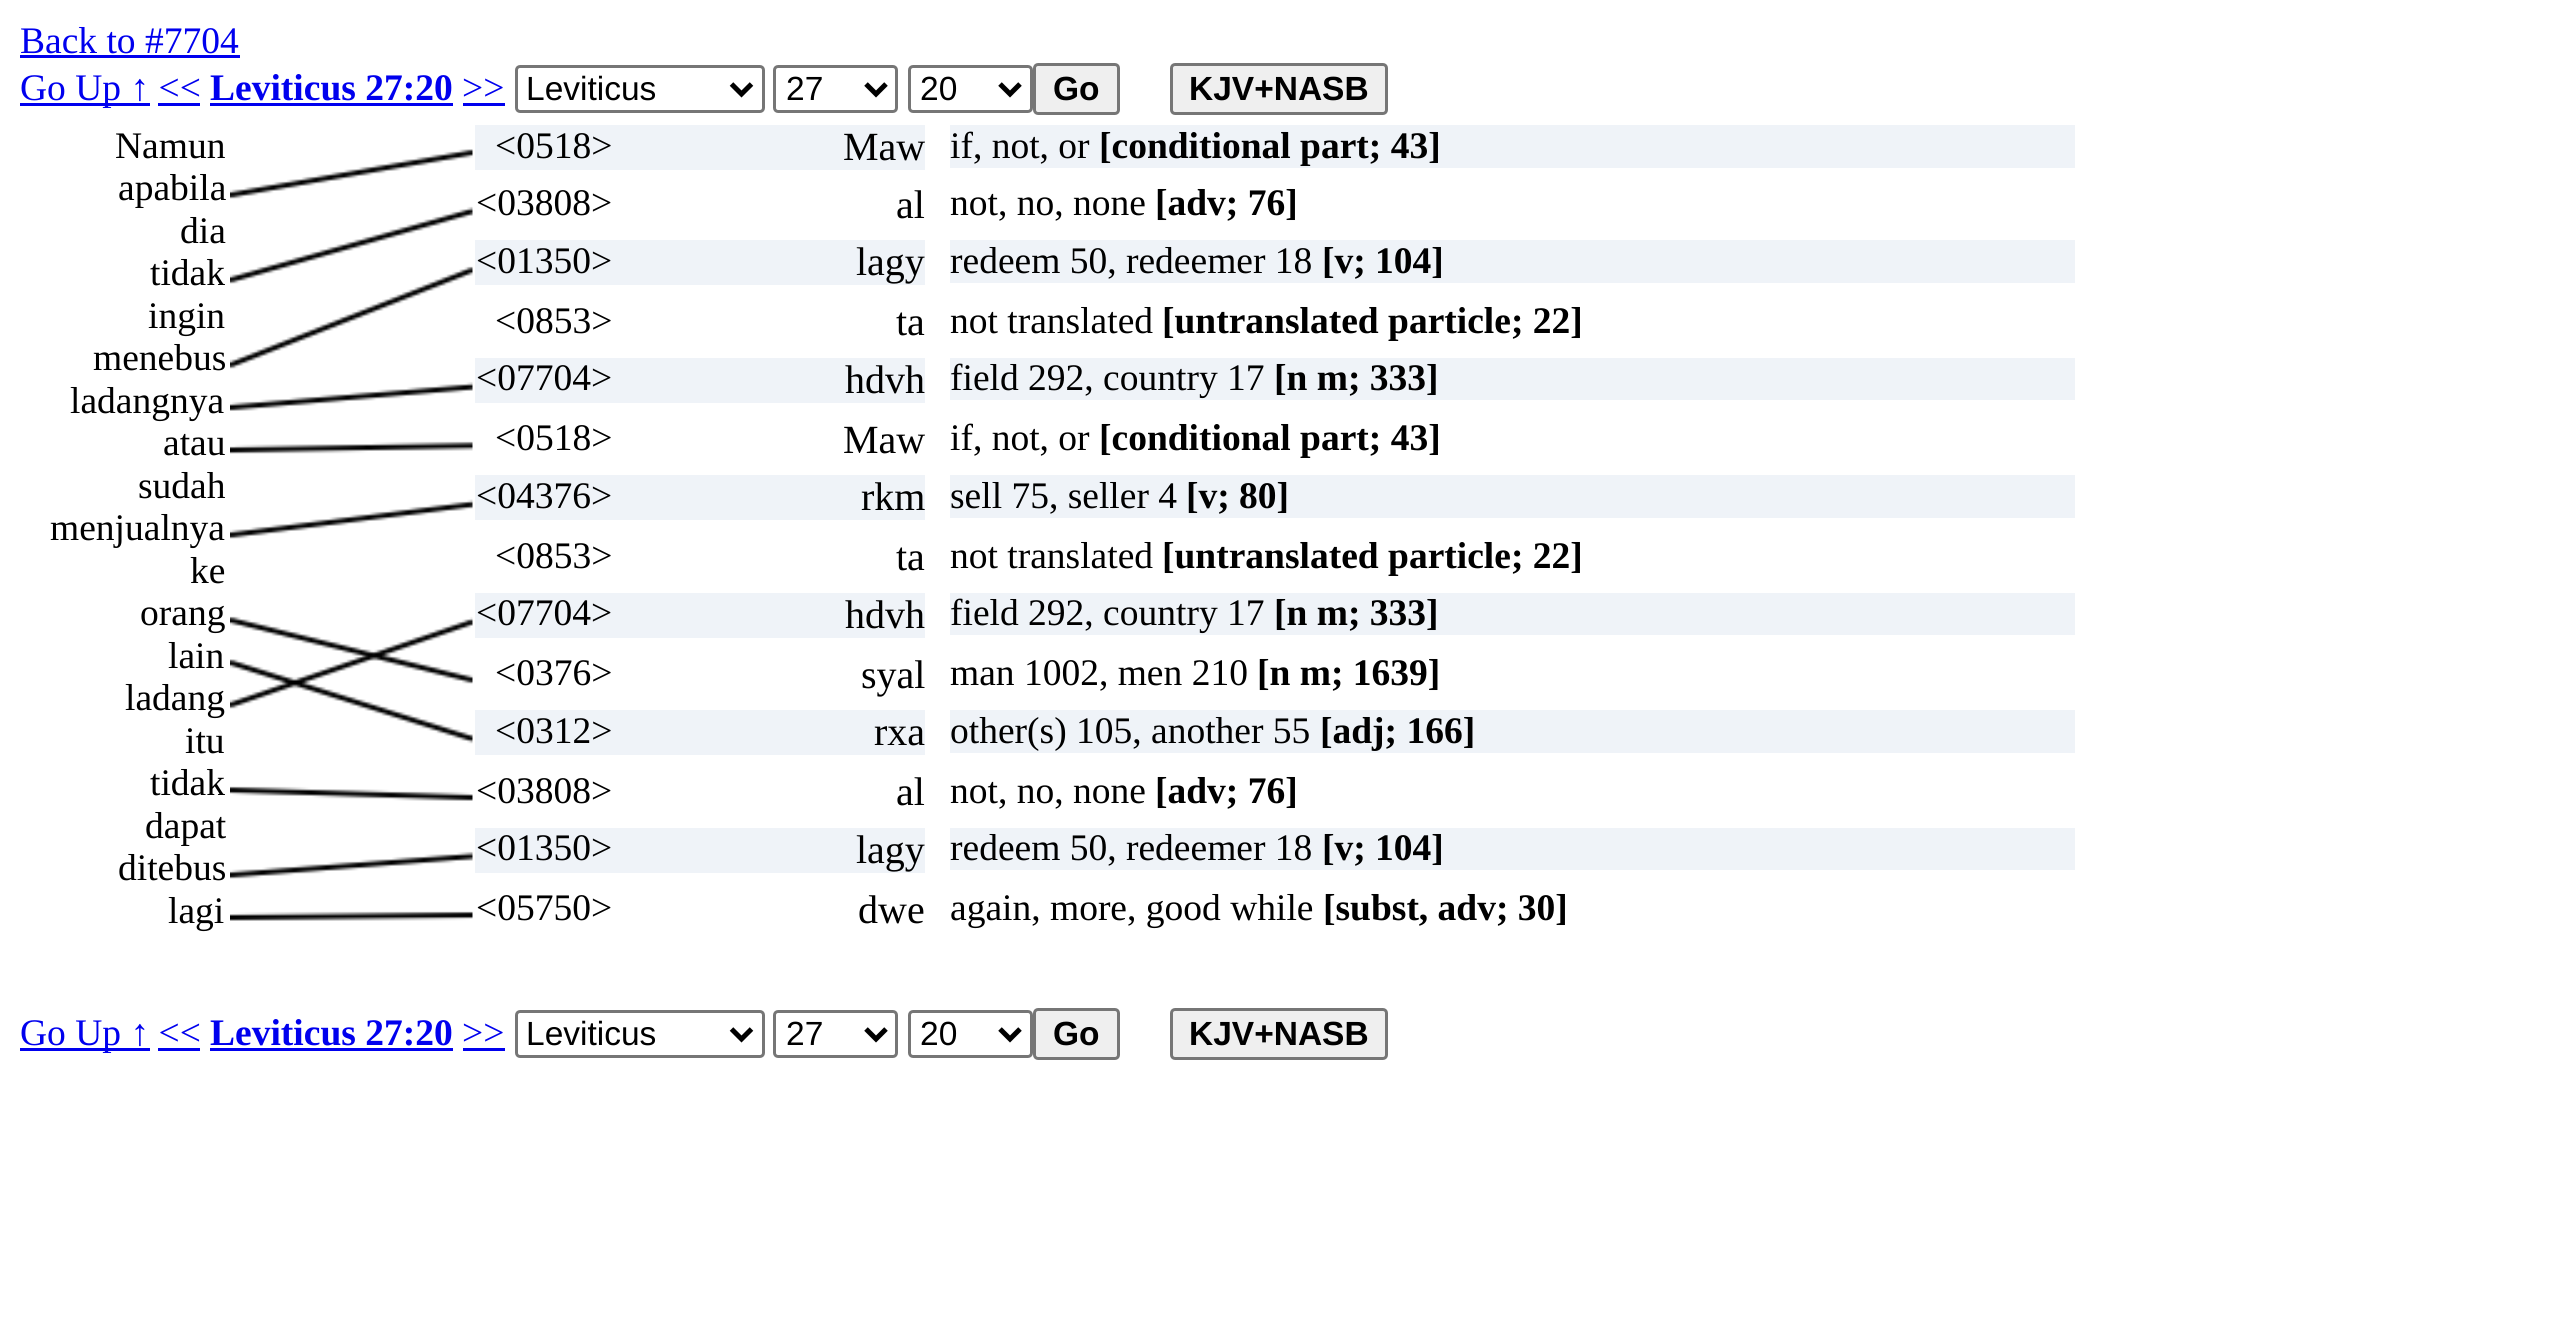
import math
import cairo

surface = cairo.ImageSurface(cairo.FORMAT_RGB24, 2564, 1330)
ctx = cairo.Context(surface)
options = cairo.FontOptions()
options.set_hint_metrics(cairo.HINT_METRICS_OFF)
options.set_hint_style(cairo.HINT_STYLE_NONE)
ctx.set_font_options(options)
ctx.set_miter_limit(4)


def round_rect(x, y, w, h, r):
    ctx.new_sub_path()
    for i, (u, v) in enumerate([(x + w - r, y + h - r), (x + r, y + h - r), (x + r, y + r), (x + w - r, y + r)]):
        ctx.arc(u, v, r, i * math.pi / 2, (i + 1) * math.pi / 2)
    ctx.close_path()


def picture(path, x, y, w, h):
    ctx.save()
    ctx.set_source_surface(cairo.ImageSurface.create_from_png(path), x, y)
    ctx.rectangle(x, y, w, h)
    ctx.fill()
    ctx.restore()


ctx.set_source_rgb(1, 1, 1)
ctx.paint()
ctx.select_font_face("Liberation Serif")
ctx.set_font_size(37.5)
ctx.set_source_rgb(0, 0, 0.933)
ctx.move_to(20, 53)
ctx.show_text("Back to #7704")
ctx.rectangle(20, 55, 220, 3)
ctx.fill()
ctx.rectangle(20, 103, 130, 3)
ctx.fill()
ctx.move_to(20, 100)
ctx.show_text("Go Up ↑ <<")
ctx.select_font_face("Liberation Serif", cairo.FONT_SLANT_NORMAL, cairo.FONT_WEIGHT_BOLD)
ctx.move_to(210, 100)
ctx.show_text("Leviticus 27:20")
ctx.rectangle(210, 103, 243, 3)
ctx.fill()
ctx.select_font_face("Liberation Serif")
ctx.move_to(462, 100)
ctx.show_text(">>")
ctx.rectangle(463, 103, 42, 3)
ctx.fill()
round_rect(516.5, 66.5, 247, 45, 3.5)
ctx.set_source_rgb(0.463, 0.463, 0.463)
ctx.set_line_width(3)
ctx.stroke()
ctx.new_path()
ctx.move_to(731.5, 84)
ctx.line_to(741.5, 94)
ctx.line_to(751.5, 84)
ctx.set_source_rgb(0, 0, 0)
ctx.set_line_width(5)
ctx.stroke()
ctx.select_font_face("Liberation Sans")
ctx.set_font_size(33.5)
ctx.move_to(526, 100)
ctx.show_text("Leviticus")
round_rect(774.5, 66.5, 122, 45, 3.5)
ctx.set_source_rgb(0.463, 0.463, 0.463)
ctx.set_line_width(3)
ctx.stroke()
ctx.new_path()
ctx.move_to(866, 84)
ctx.line_to(876, 94)
ctx.line_to(886, 84)
ctx.set_source_rgb(0, 0, 0)
ctx.set_line_width(5)
ctx.stroke()
ctx.move_to(786, 100)
ctx.show_text("27")
round_rect(909.5, 66.5, 122, 45, 3.5)
ctx.set_source_rgb(0.463, 0.463, 0.463)
ctx.set_line_width(3)
ctx.stroke()
ctx.new_path()
ctx.move_to(1000, 84)
ctx.line_to(1010, 94)
ctx.line_to(1020, 84)
ctx.set_source_rgb(0, 0, 0)
ctx.set_line_width(5)
ctx.stroke()
ctx.move_to(920, 100)
ctx.show_text("20")
ctx.set_source_rgb(0.937, 0.937, 0.937)
round_rect(1034.5, 64.5, 84, 49, 3.5)
ctx.fill_preserve()
ctx.set_source_rgb(0.463, 0.463, 0.463)
ctx.set_line_width(3)
ctx.stroke()
ctx.select_font_face("Liberation Sans", cairo.FONT_SLANT_NORMAL, cairo.FONT_WEIGHT_BOLD)
ctx.set_source_rgb(0, 0, 0)
ctx.move_to(1053, 100)
ctx.show_text("Go")
ctx.set_source_rgb(0.937, 0.937, 0.937)
round_rect(1171.5, 64.5, 215, 49, 3.5)
ctx.fill_preserve()
ctx.set_source_rgb(0.463, 0.463, 0.463)
ctx.stroke()
ctx.set_source_rgb(0, 0, 0)
ctx.move_to(1189, 100)
ctx.show_text("KJV+NASB")
ctx.set_source_rgb(0, 0, 0.933)
ctx.rectangle(158, 103, 42, 3)
ctx.fill()
ctx.select_font_face("Liberation Serif")
ctx.set_font_size(37.5)
ctx.set_source_rgb(0, 0, 0)
ctx.move_to(115, 158)
ctx.show_text("Namun")
picture("img1.png", 230, 149, 243, 772)
ctx.set_source_rgb(0.937, 0.953, 0.969)
ctx.rectangle(475, 125, 450, 45)
ctx.fill()
ctx.set_source_rgb(0, 0, 0)
ctx.move_to(495, 158)
ctx.show_text("<0518>")
ctx.set_font_size(40)
ctx.move_to(843, 160)
ctx.show_text("Maw")
ctx.set_source_rgb(0.937, 0.953, 0.969)
ctx.rectangle(950, 125, 1125, 43)
ctx.fill()
ctx.set_font_size(37.5)
ctx.set_source_rgb(0, 0, 0)
ctx.move_to(950, 158)
ctx.show_text("if, not, or")
ctx.select_font_face("Liberation Serif", cairo.FONT_SLANT_NORMAL, cairo.FONT_WEIGHT_BOLD)
ctx.move_to(1099, 158)
ctx.show_text("[conditional part; 43]")
ctx.select_font_face("Liberation Serif")
ctx.move_to(118, 200)
ctx.show_text("apabila")
ctx.move_to(476, 215)
ctx.show_text("<03808>")
ctx.set_font_size(40)
ctx.move_to(896, 218)
ctx.show_text("al")
ctx.set_font_size(37.5)
ctx.move_to(950, 215)
ctx.show_text("not, no, none")
ctx.select_font_face("Liberation Serif", cairo.FONT_SLANT_NORMAL, cairo.FONT_WEIGHT_BOLD)
ctx.move_to(1155, 215)
ctx.show_text("[adv; 76]")
ctx.select_font_face("Liberation Serif")
ctx.move_to(180, 243)
ctx.show_text("dia")
ctx.move_to(150, 285)
ctx.show_text("tidak")
ctx.set_source_rgb(0.937, 0.953, 0.969)
ctx.rectangle(475, 240, 450, 45)
ctx.fill()
ctx.set_source_rgb(0, 0, 0)
ctx.move_to(476, 273)
ctx.show_text("<01350>")
ctx.set_font_size(40)
ctx.move_to(856, 275)
ctx.show_text("lagy")
ctx.set_source_rgb(0.937, 0.953, 0.969)
ctx.rectangle(950, 240, 1125, 43)
ctx.fill()
ctx.set_font_size(37.5)
ctx.set_source_rgb(0, 0, 0)
ctx.move_to(950, 273)
ctx.show_text("redeem 50, redeemer 18")
ctx.select_font_face("Liberation Serif", cairo.FONT_SLANT_NORMAL, cairo.FONT_WEIGHT_BOLD)
ctx.move_to(1322, 273)
ctx.show_text("[v; 104]")
ctx.select_font_face("Liberation Serif")
ctx.move_to(148, 328)
ctx.show_text("ingin")
ctx.move_to(495, 333)
ctx.show_text("<0853>")
ctx.set_font_size(40)
ctx.move_to(896, 335)
ctx.show_text("ta")
ctx.set_font_size(37.5)
ctx.move_to(950, 333)
ctx.show_text("not translated")
ctx.select_font_face("Liberation Serif", cairo.FONT_SLANT_NORMAL, cairo.FONT_WEIGHT_BOLD)
ctx.move_to(1162, 333)
ctx.show_text("[untranslated particle; 22]")
ctx.select_font_face("Liberation Serif")
ctx.move_to(93, 370)
ctx.show_text("menebus")
ctx.set_source_rgb(0.937, 0.953, 0.969)
ctx.rectangle(475, 358, 450, 45)
ctx.fill()
ctx.set_source_rgb(0, 0, 0)
ctx.move_to(476, 390)
ctx.show_text("<07704>")
ctx.set_font_size(40)
ctx.move_to(845, 393)
ctx.show_text("hdvh")
ctx.set_source_rgb(0.937, 0.953, 0.969)
ctx.rectangle(950, 358, 1125, 42)
ctx.fill()
ctx.set_font_size(37.5)
ctx.set_source_rgb(0, 0, 0)
ctx.move_to(950, 390)
ctx.show_text("field 292, country 17")
ctx.select_font_face("Liberation Serif", cairo.FONT_SLANT_NORMAL, cairo.FONT_WEIGHT_BOLD)
ctx.move_to(1274, 390)
ctx.show_text("[n m; 333]")
ctx.select_font_face("Liberation Serif")
ctx.move_to(70, 413)
ctx.show_text("ladangnya")
ctx.move_to(163, 455)
ctx.show_text("atau")
ctx.move_to(495, 450)
ctx.show_text("<0518>")
ctx.set_font_size(40)
ctx.move_to(843, 453)
ctx.show_text("Maw")
ctx.set_font_size(37.5)
ctx.move_to(950, 450)
ctx.show_text("if, not, or")
ctx.select_font_face("Liberation Serif", cairo.FONT_SLANT_NORMAL, cairo.FONT_WEIGHT_BOLD)
ctx.move_to(1099, 450)
ctx.show_text("[conditional part; 43]")
ctx.select_font_face("Liberation Serif")
ctx.move_to(138, 498)
ctx.show_text("sudah")
ctx.set_source_rgb(0.937, 0.953, 0.969)
ctx.rectangle(475, 475, 450, 45)
ctx.fill()
ctx.set_source_rgb(0, 0, 0)
ctx.move_to(476, 508)
ctx.show_text("<04376>")
ctx.set_font_size(40)
ctx.move_to(861, 510)
ctx.show_text("rkm")
ctx.set_source_rgb(0.937, 0.953, 0.969)
ctx.rectangle(950, 475, 1125, 43)
ctx.fill()
ctx.set_font_size(37.5)
ctx.set_source_rgb(0, 0, 0)
ctx.move_to(950, 508)
ctx.show_text("sell 75, seller 4")
ctx.select_font_face("Liberation Serif", cairo.FONT_SLANT_NORMAL, cairo.FONT_WEIGHT_BOLD)
ctx.move_to(1186, 508)
ctx.show_text("[v; 80]")
ctx.select_font_face("Liberation Serif")
ctx.move_to(50, 540)
ctx.show_text("menjualnya")
ctx.move_to(190, 583)
ctx.show_text("ke")
ctx.move_to(495, 568)
ctx.show_text("<0853>")
ctx.set_font_size(40)
ctx.move_to(896, 570)
ctx.show_text("ta")
ctx.set_font_size(37.5)
ctx.move_to(950, 568)
ctx.show_text("not translated")
ctx.select_font_face("Liberation Serif", cairo.FONT_SLANT_NORMAL, cairo.FONT_WEIGHT_BOLD)
ctx.move_to(1162, 568)
ctx.show_text("[untranslated particle; 22]")
ctx.select_font_face("Liberation Serif")
ctx.move_to(140, 625)
ctx.show_text("orang")
ctx.set_source_rgb(0.937, 0.953, 0.969)
ctx.rectangle(475, 593, 450, 45)
ctx.fill()
ctx.set_source_rgb(0, 0, 0)
ctx.move_to(476, 625)
ctx.show_text("<07704>")
ctx.set_font_size(40)
ctx.move_to(845, 628)
ctx.show_text("hdvh")
ctx.set_source_rgb(0.937, 0.953, 0.969)
ctx.rectangle(950, 593, 1125, 42)
ctx.fill()
ctx.set_font_size(37.5)
ctx.set_source_rgb(0, 0, 0)
ctx.move_to(950, 625)
ctx.show_text("field 292, country 17")
ctx.select_font_face("Liberation Serif", cairo.FONT_SLANT_NORMAL, cairo.FONT_WEIGHT_BOLD)
ctx.move_to(1274, 625)
ctx.show_text("[n m; 333]")
ctx.select_font_face("Liberation Serif")
ctx.move_to(168, 668)
ctx.show_text("lain")
ctx.move_to(495, 685)
ctx.show_text("<0376>")
ctx.set_font_size(40)
ctx.move_to(861, 688)
ctx.show_text("syal")
ctx.set_font_size(37.5)
ctx.move_to(950, 685)
ctx.show_text("man 1002, men 210")
ctx.select_font_face("Liberation Serif", cairo.FONT_SLANT_NORMAL, cairo.FONT_WEIGHT_BOLD)
ctx.move_to(1257, 685)
ctx.show_text("[n m; 1639]")
ctx.select_font_face("Liberation Serif")
ctx.move_to(125, 710)
ctx.show_text("ladang")
ctx.move_to(185, 753)
ctx.show_text("itu")
ctx.set_source_rgb(0.937, 0.953, 0.969)
ctx.rectangle(475, 710, 450, 45)
ctx.fill()
ctx.set_source_rgb(0, 0, 0)
ctx.move_to(495, 743)
ctx.show_text("<0312>")
ctx.set_font_size(40)
ctx.move_to(874, 745)
ctx.show_text("rxa")
ctx.set_source_rgb(0.937, 0.953, 0.969)
ctx.rectangle(950, 710, 1125, 43)
ctx.fill()
ctx.set_font_size(37.5)
ctx.set_source_rgb(0, 0, 0)
ctx.move_to(950, 743)
ctx.show_text("other(s) 105, another 55")
ctx.select_font_face("Liberation Serif", cairo.FONT_SLANT_NORMAL, cairo.FONT_WEIGHT_BOLD)
ctx.move_to(1320, 743)
ctx.show_text("[adj; 166]")
ctx.select_font_face("Liberation Serif")
ctx.move_to(150, 795)
ctx.show_text("tidak")
ctx.move_to(476, 803)
ctx.show_text("<03808>")
ctx.set_font_size(40)
ctx.move_to(896, 805)
ctx.show_text("al")
ctx.set_font_size(37.5)
ctx.move_to(950, 803)
ctx.show_text("not, no, none")
ctx.select_font_face("Liberation Serif", cairo.FONT_SLANT_NORMAL, cairo.FONT_WEIGHT_BOLD)
ctx.move_to(1155, 803)
ctx.show_text("[adv; 76]")
ctx.select_font_face("Liberation Serif")
ctx.move_to(145, 838)
ctx.show_text("dapat")
ctx.move_to(118, 880)
ctx.show_text("ditebus")
ctx.set_source_rgb(0.937, 0.953, 0.969)
ctx.rectangle(475, 828, 450, 45)
ctx.fill()
ctx.set_source_rgb(0, 0, 0)
ctx.move_to(476, 860)
ctx.show_text("<01350>")
ctx.set_font_size(40)
ctx.move_to(856, 863)
ctx.show_text("lagy")
ctx.set_source_rgb(0.937, 0.953, 0.969)
ctx.rectangle(950, 828, 1125, 42)
ctx.fill()
ctx.set_font_size(37.5)
ctx.set_source_rgb(0, 0, 0)
ctx.move_to(950, 860)
ctx.show_text("redeem 50, redeemer 18")
ctx.select_font_face("Liberation Serif", cairo.FONT_SLANT_NORMAL, cairo.FONT_WEIGHT_BOLD)
ctx.move_to(1322, 860)
ctx.show_text("[v; 104]")
ctx.select_font_face("Liberation Serif")
ctx.move_to(168, 923)
ctx.show_text("lagi")
ctx.move_to(476, 920)
ctx.show_text("<05750>")
ctx.set_font_size(40)
ctx.move_to(858, 923)
ctx.show_text("dwe")
ctx.set_font_size(37.5)
ctx.move_to(950, 920)
ctx.show_text("again, more, good while")
ctx.select_font_face("Liberation Serif", cairo.FONT_SLANT_NORMAL, cairo.FONT_WEIGHT_BOLD)
ctx.move_to(1323, 920)
ctx.show_text("[subst, adv; 30]")
ctx.set_source_rgb(0, 0, 0.933)
ctx.rectangle(20, 1048, 130, 3)
ctx.fill()
ctx.select_font_face("Liberation Serif")
ctx.move_to(20, 1045)
ctx.show_text("Go Up ↑ <<")
ctx.select_font_face("Liberation Serif", cairo.FONT_SLANT_NORMAL, cairo.FONT_WEIGHT_BOLD)
ctx.move_to(210, 1045)
ctx.show_text("Leviticus 27:20")
ctx.rectangle(210, 1048, 243, 3)
ctx.fill()
ctx.select_font_face("Liberation Serif")
ctx.move_to(462, 1045)
ctx.show_text(">>")
ctx.rectangle(463, 1048, 42, 3)
ctx.fill()
round_rect(516.5, 1011.5, 247, 45, 3.5)
ctx.set_source_rgb(0.463, 0.463, 0.463)
ctx.stroke()
ctx.new_path()
ctx.move_to(731.5, 1029)
ctx.line_to(741.5, 1039)
ctx.line_to(751.5, 1029)
ctx.set_source_rgb(0, 0, 0)
ctx.set_line_width(5)
ctx.stroke()
ctx.select_font_face("Liberation Sans")
ctx.set_font_size(33.5)
ctx.move_to(526, 1045)
ctx.show_text("Leviticus")
round_rect(774.5, 1011.5, 122, 45, 3.5)
ctx.set_source_rgb(0.463, 0.463, 0.463)
ctx.set_line_width(3)
ctx.stroke()
ctx.new_path()
ctx.move_to(866, 1029)
ctx.line_to(876, 1039)
ctx.line_to(886, 1029)
ctx.set_source_rgb(0, 0, 0)
ctx.set_line_width(5)
ctx.stroke()
ctx.move_to(786, 1045)
ctx.show_text("27")
round_rect(909.5, 1011.5, 122, 45, 3.5)
ctx.set_source_rgb(0.463, 0.463, 0.463)
ctx.set_line_width(3)
ctx.stroke()
ctx.new_path()
ctx.move_to(1000, 1029)
ctx.line_to(1010, 1039)
ctx.line_to(1020, 1029)
ctx.set_source_rgb(0, 0, 0)
ctx.set_line_width(5)
ctx.stroke()
ctx.move_to(920, 1045)
ctx.show_text("20")
ctx.set_source_rgb(0.937, 0.937, 0.937)
round_rect(1034.5, 1009.5, 84, 49, 3.5)
ctx.fill_preserve()
ctx.set_source_rgb(0.463, 0.463, 0.463)
ctx.set_line_width(3)
ctx.stroke()
ctx.select_font_face("Liberation Sans", cairo.FONT_SLANT_NORMAL, cairo.FONT_WEIGHT_BOLD)
ctx.set_source_rgb(0, 0, 0)
ctx.move_to(1053, 1045)
ctx.show_text("Go")
ctx.set_source_rgb(0.937, 0.937, 0.937)
round_rect(1171.5, 1009.5, 215, 49, 3.5)
ctx.fill_preserve()
ctx.set_source_rgb(0.463, 0.463, 0.463)
ctx.stroke()
ctx.set_source_rgb(0, 0, 0)
ctx.move_to(1189, 1045)
ctx.show_text("KJV+NASB")
ctx.set_source_rgb(0, 0, 0.933)
ctx.rectangle(158, 1048, 42, 3)
ctx.fill()
surface.write_to_png("page.png")
